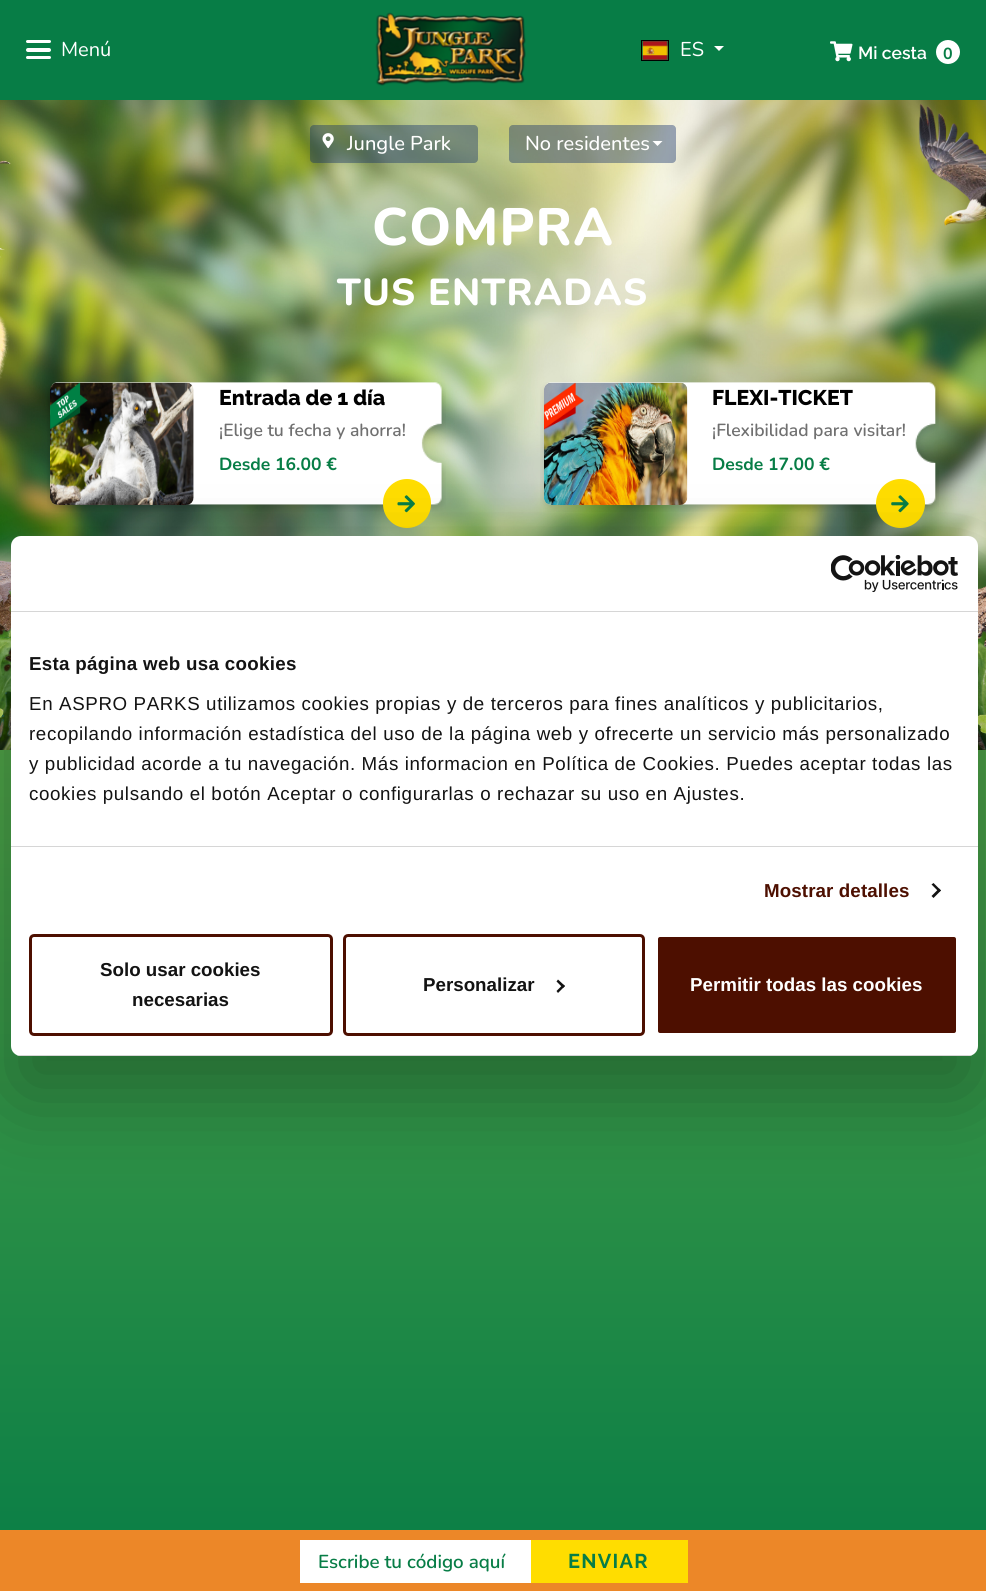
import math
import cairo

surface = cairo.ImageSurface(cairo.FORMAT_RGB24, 986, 1591)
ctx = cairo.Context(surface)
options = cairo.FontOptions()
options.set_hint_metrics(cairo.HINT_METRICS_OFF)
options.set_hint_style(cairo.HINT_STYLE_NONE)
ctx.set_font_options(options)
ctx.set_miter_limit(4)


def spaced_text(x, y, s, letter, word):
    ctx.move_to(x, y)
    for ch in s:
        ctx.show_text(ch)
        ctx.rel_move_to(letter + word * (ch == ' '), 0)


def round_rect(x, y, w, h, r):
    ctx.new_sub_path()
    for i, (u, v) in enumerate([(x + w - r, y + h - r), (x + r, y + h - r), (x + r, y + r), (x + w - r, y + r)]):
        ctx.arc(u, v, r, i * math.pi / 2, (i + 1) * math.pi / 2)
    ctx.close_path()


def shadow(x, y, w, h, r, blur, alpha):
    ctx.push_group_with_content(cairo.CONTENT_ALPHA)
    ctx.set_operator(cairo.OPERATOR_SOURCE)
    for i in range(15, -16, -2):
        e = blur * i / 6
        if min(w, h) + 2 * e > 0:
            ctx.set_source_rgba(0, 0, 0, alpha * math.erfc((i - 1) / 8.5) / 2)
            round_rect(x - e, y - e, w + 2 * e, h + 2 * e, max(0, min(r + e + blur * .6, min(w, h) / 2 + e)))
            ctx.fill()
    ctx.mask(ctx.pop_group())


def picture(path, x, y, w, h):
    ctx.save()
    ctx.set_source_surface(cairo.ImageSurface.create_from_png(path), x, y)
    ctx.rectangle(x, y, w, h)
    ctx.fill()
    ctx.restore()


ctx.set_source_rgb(1, 1, 1)
ctx.paint()
ctx.set_source_rgb(0.031, 0.49, 0.275)
ctx.rectangle(0, 0, 986, 100)
ctx.fill()
ctx.set_source_rgb(1, 1, 1)
round_rect(26, 40, 25, 3, 1.5)
ctx.fill()
round_rect(26, 48, 25, 4, 2)
ctx.fill()
round_rect(26, 56, 25, 3, 1.5)
ctx.fill()
ctx.select_font_face("Nunito")
ctx.set_font_size(20)
ctx.move_to(61, 56)
ctx.show_text("Menú")
picture("img1.png", 375, 12, 151, 74)
picture("img2.png", 642, 41, 26, 19)
ctx.rectangle(641.5, 40.5, 27, 20)
ctx.set_source_rgb(0, 0, 0)
ctx.set_line_width(1)
ctx.stroke()
ctx.set_source_rgb(1, 1, 1)
ctx.move_to(680, 56)
ctx.show_text("ES")
ctx.new_path()
ctx.move_to(714, 46)
ctx.line_to(724, 46)
ctx.line_to(719, 51)
ctx.close_path()
ctx.fill()
picture("img3.png", 830, 41, 23, 21)
ctx.select_font_face("Raleway SemiBold")
ctx.set_font_size(17.5)
ctx.move_to(858, 59)
ctx.show_text("Mi cesta")
ctx.new_path()
ctx.arc(948, 52, 12, 0, 2 * math.pi)
ctx.fill()
ctx.select_font_face("Nunito", cairo.FONT_SLANT_NORMAL, cairo.FONT_WEIGHT_BOLD)
ctx.set_font_size(16)
ctx.set_source_rgb(0.031, 0.49, 0.275)
ctx.move_to(943, 59)
ctx.show_text("0")
gradient = cairo.LinearGradient(493, 100, 493, 1591)
gradient.add_color_stop_rgba(0, 0.51, 0.737, 0.275, 1)
gradient.add_color_stop_rgba(1, 0.031, 0.49, 0.275, 1)
ctx.set_source(gradient)
ctx.rectangle(0, 750, 986, 780)
ctx.fill()
picture("img4.png", 0, 100, 986, 650)
ctx.set_source_rgba(0.055, 0.173, 0.412, 0.4)
round_rect(310, 125, 168, 38, 4)
ctx.fill()
picture("img5.png", 322, 133, 12, 16)
ctx.select_font_face("Nunito Medium")
ctx.set_font_size(20)
ctx.set_source_rgb(1, 1, 1)
ctx.move_to(347, 150)
ctx.show_text("Jungle Park")
ctx.set_source_rgba(0.055, 0.173, 0.412, 0.4)
round_rect(509, 125, 167, 38, 4)
ctx.fill()
ctx.set_source_rgb(1, 1, 1)
ctx.move_to(525, 150)
ctx.show_text("No residentes")
ctx.new_path()
ctx.move_to(652.5, 141)
ctx.line_to(662.5, 141)
ctx.line_to(657.5, 146)
ctx.close_path()
ctx.fill()
ctx.select_font_face("Nunito ExtraBold")
ctx.set_font_size(52.5)
spaced_text(372, 245, "COMPRA", 1.25, 0)
ctx.set_font_size(37.5)
spaced_text(337, 305, "TUS ENTRADAS", 1.25, 0)
picture("img6.png", 47, 382, 399, 130)
picture("img7.png", 50, 382, 144, 123)
ctx.select_font_face("Raleway ExtraBold")
ctx.set_font_size(21.25)
ctx.set_source_rgb(0, 0, 0)
ctx.move_to(219, 405)
ctx.show_text("Entrada de 1 día")
ctx.select_font_face("Nunito SemiBold")
ctx.set_font_size(17.5)
ctx.set_source_rgb(0.439, 0.439, 0.439)
ctx.move_to(219, 436)
ctx.show_text("¡Elige tu fecha y ahorra!")
ctx.select_font_face("Nunito", cairo.FONT_SLANT_NORMAL, cairo.FONT_WEIGHT_BOLD)
ctx.set_source_rgb(0.031, 0.49, 0.275)
ctx.move_to(219, 470)
ctx.show_text("Desde 16.00 €")
ctx.set_source_rgb(1, 0.867, 0)
round_rect(383, 479, 48, 49, 24)
ctx.fill()
picture("img8.png", 397, 495, 18, 18)
picture("img9.png", 540, 382, 399, 130)
picture("img10.png", 544, 382, 144, 123)
ctx.select_font_face("Raleway ExtraBold")
ctx.set_font_size(21.25)
ctx.set_source_rgb(0, 0, 0)
ctx.move_to(712, 405)
ctx.show_text("FLEXI-TICKET")
ctx.select_font_face("Nunito SemiBold")
ctx.set_font_size(17.5)
ctx.set_source_rgb(0.439, 0.439, 0.439)
ctx.move_to(712, 436)
ctx.show_text("¡Flexibilidad para visitar!")
ctx.select_font_face("Nunito", cairo.FONT_SLANT_NORMAL, cairo.FONT_WEIGHT_BOLD)
ctx.set_source_rgb(0.031, 0.49, 0.275)
ctx.move_to(712, 470)
ctx.show_text("Desde 17.00 €")
ctx.set_source_rgb(1, 0.867, 0)
ctx.new_path()
ctx.arc(900.5, 503.5, 24.5, 0, 2 * math.pi)
ctx.fill()
picture("img11.png", 891, 495, 18, 18)
ctx.set_source_rgb(0.922, 0.529, 0.157)
ctx.rectangle(0, 1530, 986, 61)
ctx.fill()
ctx.set_source_rgb(1, 1, 1)
ctx.rectangle(300, 1540, 231, 43)
ctx.fill()
ctx.select_font_face("Nunito SemiBold")
ctx.set_font_size(18.75)
ctx.set_source_rgb(0.031, 0.49, 0.275)
ctx.move_to(318, 1568)
ctx.show_text("Escribe tu código aquí")
ctx.set_source_rgb(1, 0.867, 0)
ctx.rectangle(531, 1540, 157, 43)
ctx.fill()
ctx.select_font_face("Raleway", cairo.FONT_SLANT_NORMAL, cairo.FONT_WEIGHT_BOLD)
ctx.set_font_size(20)
ctx.set_source_rgb(0.031, 0.49, 0.275)
spaced_text(568, 1568, "ENVIAR", 1.25, 0)
ctx.set_source_rgb(0, 0, 0)
shadow(11, 576, 967, 520, 10, 42.5, 0.3)
ctx.set_source_rgb(1, 1, 1)
round_rect(11, 536, 967, 520, 10)
ctx.fill()
ctx.set_source_rgb(0.839, 0.839, 0.839)
ctx.rectangle(11, 611, 967, 1)
ctx.fill()
picture("img12.png", 831, 555, 127, 38)
ctx.rectangle(11, 846, 967, 1)
ctx.fill()
ctx.select_font_face("Liberation Sans", cairo.FONT_SLANT_NORMAL, cairo.FONT_WEIGHT_BOLD)
ctx.set_font_size(18.75)
ctx.set_source_rgb(0.078, 0.078, 0.078)
spaced_text(29, 670, "Esta página web usa cookies", 0.3, 0)
ctx.select_font_face("Liberation Sans")
spaced_text(29, 710, "En ASPRO PARKS utilizamos cookies propias y de terceros para fines analíticos y publicitarios,", 0.62, 0)
spaced_text(29, 740, "recopilando información estadística del uso de la página web y ofrecerte un servicio más personalizado", 0.62, 0)
spaced_text(29, 770, "y publicidad acorde a tu navegación. Más informacion en Política de Cookies. Puedes aceptar todas las", 0.62, 0)
spaced_text(29, 800, "cookies pulsando el botón Aceptar o configurarlas o rechazar su uso en Ajustes.", 0.62, 0)
ctx.select_font_face("Liberation Sans", cairo.FONT_SLANT_NORMAL, cairo.FONT_WEIGHT_BOLD)
ctx.set_source_rgb(0.302, 0.059, 0)
spaced_text(764, 897, "Mostrar detalles", 0.1, 0)
ctx.set_source_rgb(0.078, 0.078, 0.078)
ctx.new_path()
ctx.move_to(933.5, 883)
ctx.line_to(941, 890.5)
ctx.line_to(939, 892)
ctx.line_to(931.5, 884.5)
ctx.close_path()
ctx.fill()
ctx.new_path()
ctx.move_to(939, 888.5)
ctx.line_to(941, 890.5)
ctx.line_to(933.5, 898)
ctx.line_to(931.5, 896)
ctx.close_path()
ctx.fill()
ctx.save()
round_rect(11, 536, 967, 520, 10)
ctx.clip()
ctx.set_source_rgb(0.839, 0.839, 0.839)
ctx.rectangle(11, 1055, 967, 1)
ctx.fill()
ctx.restore()
round_rect(30.5, 935.5, 301, 99, 3.5)
ctx.set_source_rgb(0.302, 0.059, 0)
ctx.set_line_width(3)
ctx.stroke()
ctx.set_source_rgb(0.078, 0.078, 0.078)
ctx.move_to(100, 976)
ctx.show_text("Solo usar cookies")
ctx.move_to(132, 1006)
ctx.show_text("necesarias")
round_rect(344.5, 935.5, 299, 99, 3.5)
ctx.set_source_rgb(0.302, 0.059, 0)
ctx.stroke()
ctx.set_source_rgb(0.078, 0.078, 0.078)
ctx.move_to(423, 991)
ctx.show_text("Personalizar")
ctx.new_path()
ctx.move_to(558, 979.5)
ctx.line_to(565, 986)
ctx.line_to(563, 988)
ctx.line_to(556.5, 981.5)
ctx.close_path()
ctx.fill()
ctx.new_path()
ctx.move_to(563, 984.5)
ctx.line_to(565, 986)
ctx.line_to(558, 993)
ctx.line_to(556.5, 991)
ctx.close_path()
ctx.fill()
ctx.set_source_rgb(0.302, 0.059, 0)
round_rect(656.5, 935.5, 301, 99, 3.5)
ctx.fill_preserve()
ctx.set_source_rgb(1, 1, 1)
ctx.stroke()
ctx.move_to(690, 991)
ctx.show_text("Permitir todas las cookies")
surface.write_to_png("page.png")
